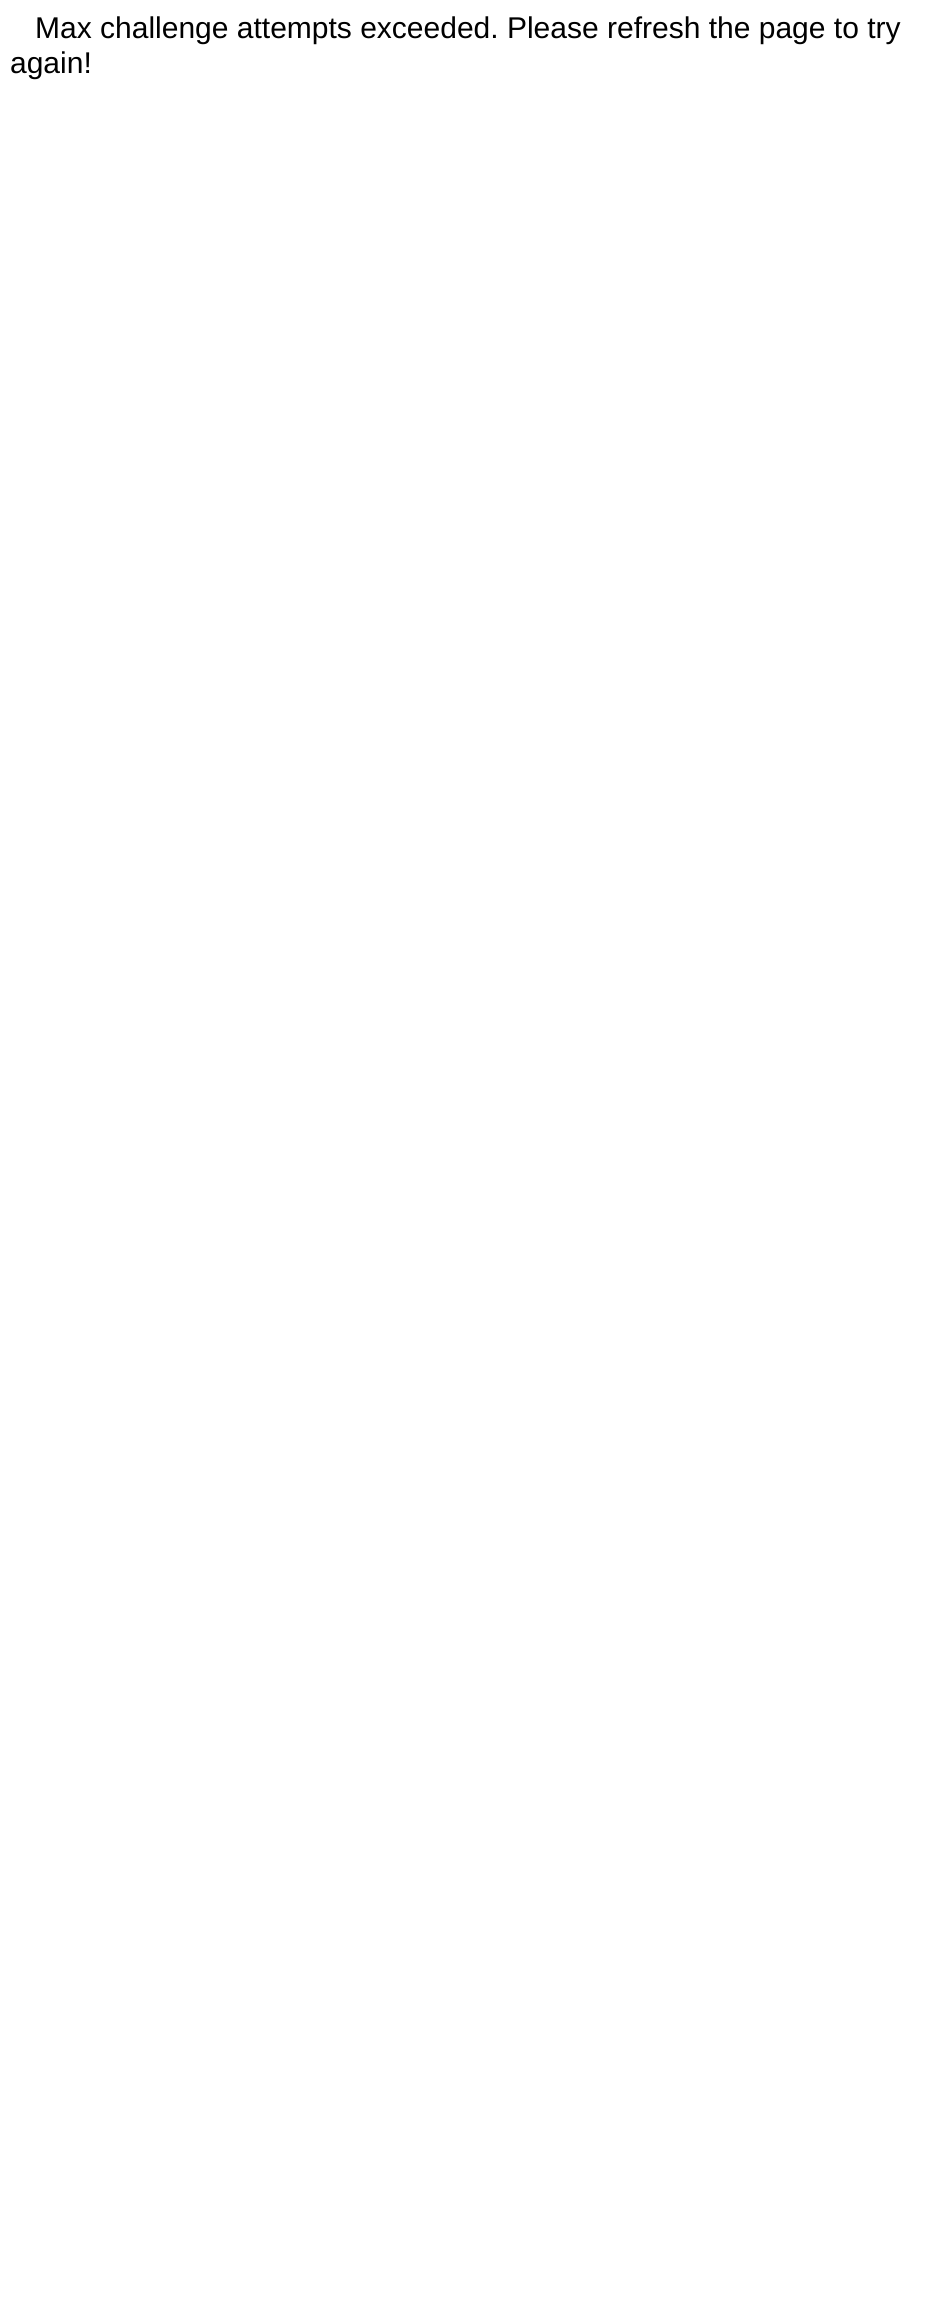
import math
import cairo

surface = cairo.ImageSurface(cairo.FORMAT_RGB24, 936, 2323)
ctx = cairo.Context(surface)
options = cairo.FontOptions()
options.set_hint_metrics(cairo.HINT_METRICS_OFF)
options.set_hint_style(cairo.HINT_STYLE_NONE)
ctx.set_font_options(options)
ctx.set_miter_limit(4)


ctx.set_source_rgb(1, 1, 1)
ctx.paint()
ctx.select_font_face("Liberation Sans")
ctx.set_font_size(30)
ctx.set_source_rgb(0, 0, 0)
ctx.move_to(35, 38)
ctx.show_text("Max challenge attempts exceeded. Please refresh the page to try")
ctx.move_to(10, 73)
ctx.show_text("again!")
surface.write_to_png("page.png")
